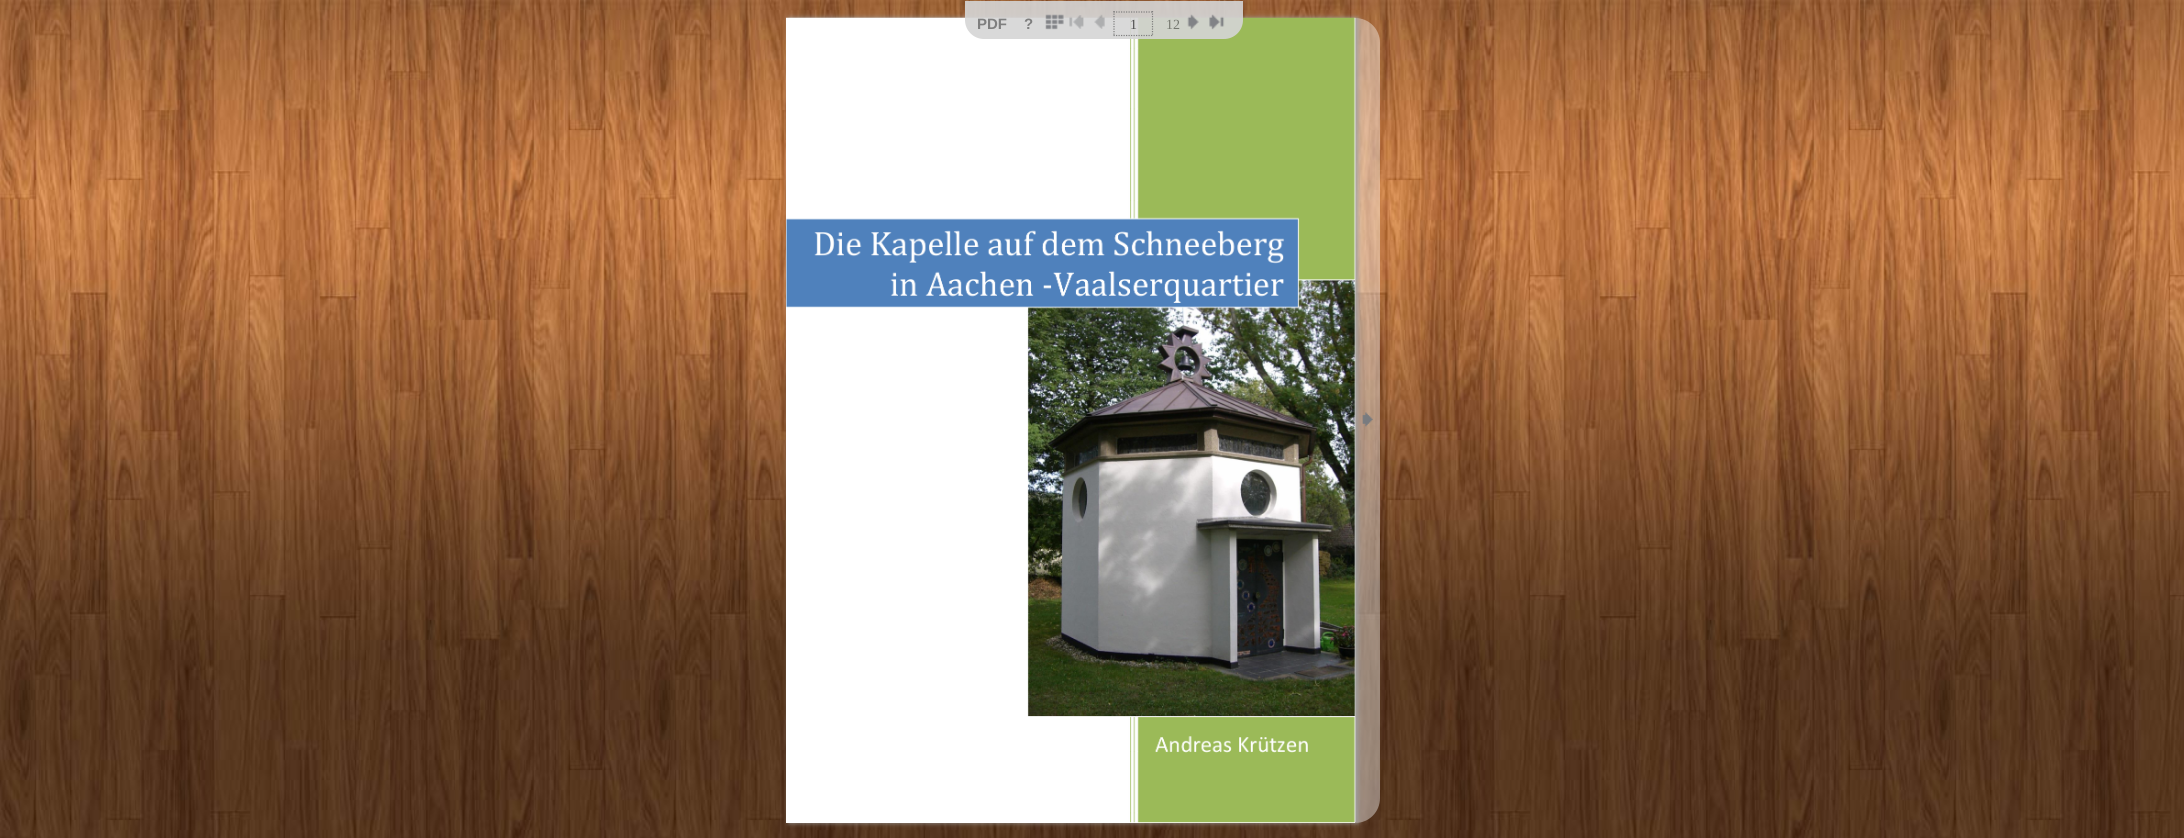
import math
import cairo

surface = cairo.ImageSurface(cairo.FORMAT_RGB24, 2184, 838)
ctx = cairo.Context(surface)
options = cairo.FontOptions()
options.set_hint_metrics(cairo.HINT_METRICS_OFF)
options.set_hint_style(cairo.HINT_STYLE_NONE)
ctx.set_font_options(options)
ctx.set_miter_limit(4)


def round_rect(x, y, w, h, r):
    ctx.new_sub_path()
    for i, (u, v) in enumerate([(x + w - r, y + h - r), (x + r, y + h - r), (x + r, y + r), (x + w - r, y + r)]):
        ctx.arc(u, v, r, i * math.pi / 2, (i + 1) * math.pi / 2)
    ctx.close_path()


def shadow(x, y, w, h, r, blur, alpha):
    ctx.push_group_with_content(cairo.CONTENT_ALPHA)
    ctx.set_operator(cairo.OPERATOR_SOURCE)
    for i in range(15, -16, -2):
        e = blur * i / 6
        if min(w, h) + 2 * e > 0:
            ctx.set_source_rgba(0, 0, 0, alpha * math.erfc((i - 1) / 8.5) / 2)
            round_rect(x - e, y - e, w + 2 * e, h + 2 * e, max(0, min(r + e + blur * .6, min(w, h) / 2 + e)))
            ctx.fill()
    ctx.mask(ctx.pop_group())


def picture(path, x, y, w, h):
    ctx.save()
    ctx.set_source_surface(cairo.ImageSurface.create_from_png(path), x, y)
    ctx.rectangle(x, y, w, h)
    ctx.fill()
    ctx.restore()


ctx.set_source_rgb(1, 1, 1)
ctx.paint()
picture("img1.png", 0, 0, 2184, 838)
ctx.set_source_rgba(1, 1, 1, 0.4)
ctx.new_path()
ctx.move_to(1355, 18)
ctx.curve_to(1369, 18, 1380, 29, 1380, 43)
ctx.line_to(1380, 798)
ctx.curve_to(1380, 812, 1369, 823, 1355, 823)
ctx.close_path()
ctx.fill()
picture("img8.png", 1362, 412, 11, 15)
ctx.set_source_rgb(0.627, 0.627, 0.627)
shadow(789, 18, 569, 805, 0, 2.5, 1)
ctx.set_source_rgb(1, 1, 1)
ctx.rectangle(786, 18, 569, 805)
ctx.fill()
picture("img2.png", 786, 17, 570, 806)
ctx.set_source_rgba(0.835, 0.835, 0.835, 0.9)
ctx.new_path()
ctx.move_to(965, 1)
ctx.line_to(1243, 1)
ctx.line_to(1243, 20)
ctx.curve_to(1243, 30.5, 1234.5, 39, 1224, 39)
ctx.line_to(984, 39)
ctx.curve_to(973.5, 39, 965, 30.5, 965, 20)
ctx.close_path()
ctx.fill()
ctx.select_font_face("Liberation Sans", cairo.FONT_SLANT_NORMAL, cairo.FONT_WEIGHT_BOLD)
ctx.set_font_size(15)
ctx.set_source_rgb(0.498, 0.498, 0.498)
ctx.move_to(977, 29)
ctx.show_text("PDF")
ctx.move_to(1024, 29)
ctx.show_text("?")
picture("img3.png", 1045, 14, 19, 16)
picture("img4.png", 1069, 15, 15, 14)
picture("img5.png", 1094, 14, 11, 15)
ctx.new_path()
ctx.move_to(1113.5, 12)
ctx.line_to(1153.5, 12)
ctx.set_source_rgba(0.463, 0.463, 0.463, 0.9)
ctx.set_line_width(1.2)
ctx.set_dash([1.25, 1.25])
ctx.stroke()
ctx.new_path()
ctx.move_to(1152.5, 11)
ctx.line_to(1152.5, 36)
ctx.stroke()
ctx.new_path()
ctx.move_to(1113.5, 35.5)
ctx.line_to(1153.5, 35.5)
ctx.stroke()
ctx.new_path()
ctx.move_to(1114, 11)
ctx.line_to(1114, 36)
ctx.stroke()
ctx.select_font_face("Liberation Serif")
ctx.set_font_size(14)
ctx.set_source_rgb(0.306, 0.306, 0.306)
ctx.move_to(1130, 29)
ctx.show_text("1")
ctx.set_source_rgb(0.455, 0.467, 0.431)
ctx.move_to(1166, 29)
ctx.show_text("12")
picture("img6.png", 1187, 14, 12, 16)
picture("img7.png", 1209, 14, 16, 16)
surface.write_to_png("page.png")
